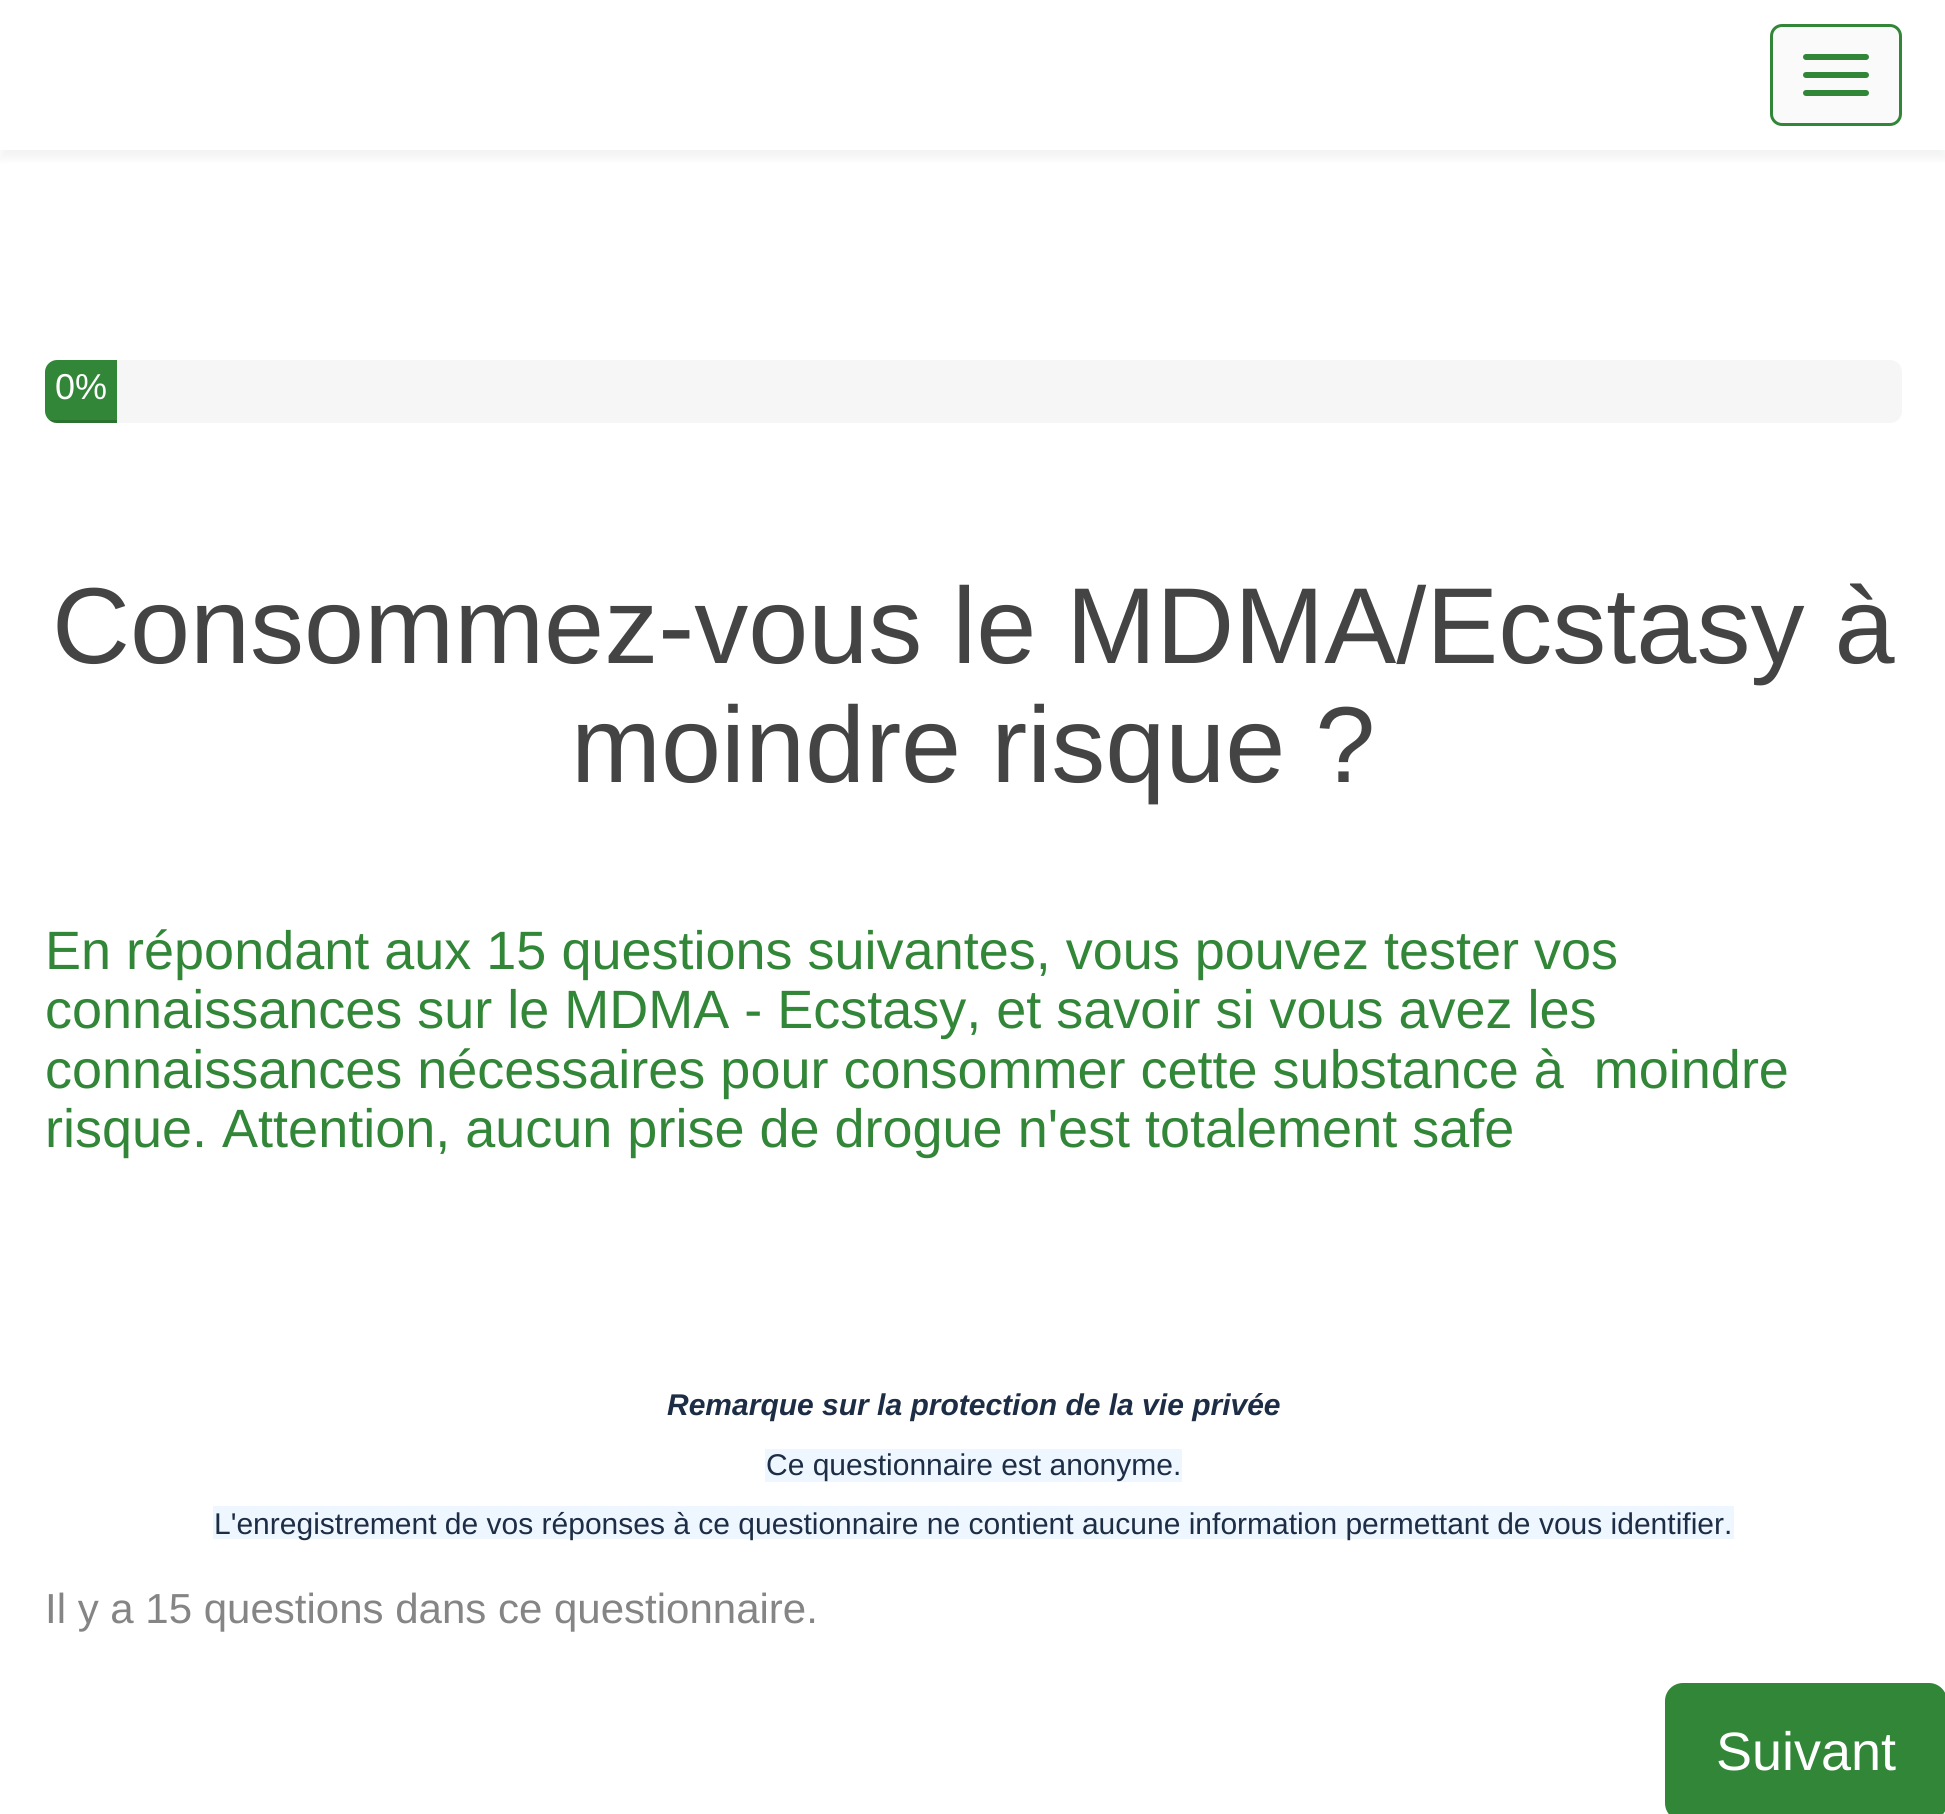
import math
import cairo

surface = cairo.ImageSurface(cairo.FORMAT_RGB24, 1945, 1814)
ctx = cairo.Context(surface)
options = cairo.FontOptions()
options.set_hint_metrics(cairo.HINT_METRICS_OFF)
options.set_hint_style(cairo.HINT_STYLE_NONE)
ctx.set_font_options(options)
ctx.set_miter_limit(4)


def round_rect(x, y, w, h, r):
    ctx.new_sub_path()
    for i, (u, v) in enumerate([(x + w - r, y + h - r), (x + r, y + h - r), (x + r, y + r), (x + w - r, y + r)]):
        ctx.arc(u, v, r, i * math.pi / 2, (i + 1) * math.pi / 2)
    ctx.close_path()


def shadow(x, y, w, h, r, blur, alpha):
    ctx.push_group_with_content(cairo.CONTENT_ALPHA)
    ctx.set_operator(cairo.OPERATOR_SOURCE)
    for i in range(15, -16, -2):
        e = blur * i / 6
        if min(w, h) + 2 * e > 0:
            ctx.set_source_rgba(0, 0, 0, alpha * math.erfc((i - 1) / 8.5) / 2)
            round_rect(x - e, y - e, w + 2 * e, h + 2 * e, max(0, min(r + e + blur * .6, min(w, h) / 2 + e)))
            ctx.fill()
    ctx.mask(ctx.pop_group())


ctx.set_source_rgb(1, 1, 1)
ctx.paint()
ctx.save()
ctx.rectangle(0, 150, 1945, 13)
ctx.clip()
ctx.set_source_rgb(0.518, 0.533, 0.541)
shadow(0, 9, 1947, 150, 0, 4.5, 0.1)
ctx.restore()
ctx.set_source_rgb(0.98, 0.98, 0.98)
round_rect(1771.5, 25.5, 129, 99, 10.5)
ctx.fill_preserve()
ctx.set_source_rgb(0.196, 0.525, 0.216)
ctx.set_line_width(3)
ctx.stroke()
round_rect(1803, 54, 66, 6, 3)
ctx.fill()
round_rect(1803, 72, 66, 6, 3)
ctx.fill()
round_rect(1803, 90, 66, 6, 3)
ctx.fill()
ctx.set_source_rgb(0.961, 0.961, 0.961)
round_rect(45, 360, 1857, 63, 12)
ctx.fill()
ctx.set_source_rgb(0.196, 0.525, 0.216)
ctx.new_path()
ctx.move_to(57, 360)
ctx.line_to(117, 360)
ctx.line_to(117, 423)
ctx.line_to(57, 423)
ctx.curve_to(50.5, 423, 45, 417.5, 45, 411)
ctx.line_to(45, 372)
ctx.curve_to(45, 365.5, 50.5, 360, 57, 360)
ctx.close_path()
ctx.fill()
ctx.save()
round_rect(45, 360, 1857, 63, 12)
ctx.clip()
ctx.set_source_rgba(0, 0, 0, 0.15)
ctx.rectangle(45, 420, 72, 3)
ctx.fill()
ctx.restore()
ctx.select_font_face("Liberation Sans")
ctx.set_font_size(36)
ctx.set_source_rgb(1, 1, 1)
ctx.move_to(55, 399)
ctx.show_text("0%")
ctx.set_font_size(108)
ctx.set_source_rgb(0.267, 0.267, 0.267)
ctx.move_to(52, 663)
ctx.show_text("Consommez-vous le MDMA/Ecstasy à")
ctx.move_to(571, 782)
ctx.show_text("moindre risque ?")
ctx.set_font_size(54)
ctx.set_source_rgb(0.196, 0.525, 0.216)
ctx.move_to(45, 969)
ctx.show_text("En répondant aux 15 questions suivantes, vous pouvez tester vos")
ctx.move_to(45, 1028)
ctx.show_text("connaissances sur le MDMA - Ecstasy, et savoir si vous avez les")
ctx.move_to(45, 1088)
ctx.show_text("connaissances nécessaires pour consommer cette substance à  moindre")
ctx.move_to(45, 1147)
ctx.show_text("risque. Attention, aucun prise de drogue n'est totalement safe")
ctx.select_font_face("Liberation Sans", cairo.FONT_SLANT_ITALIC, cairo.FONT_WEIGHT_BOLD)
ctx.set_font_size(30)
ctx.set_source_rgb(0.114, 0.176, 0.271)
ctx.move_to(667, 1415)
ctx.show_text("Remarque sur la protection de la vie privée")
ctx.set_source_rgb(0.933, 0.965, 1)
ctx.rectangle(765, 1449, 417, 33)
ctx.fill()
ctx.select_font_face("Liberation Sans")
ctx.set_source_rgb(0.114, 0.176, 0.271)
ctx.move_to(766, 1475)
ctx.show_text("Ce questionnaire est anonyme.")
ctx.set_source_rgb(0.933, 0.965, 1)
ctx.rectangle(213, 1506, 1521, 33)
ctx.fill()
ctx.set_source_rgb(0.114, 0.176, 0.271)
ctx.move_to(214, 1534)
ctx.show_text("L'enregistrement de vos réponses à ce questionnaire ne contient aucune information permettant de vous identifier.")
ctx.set_font_size(42)
ctx.set_source_rgb(0.522, 0.522, 0.522)
ctx.move_to(45, 1623)
ctx.show_text("Il y a 15 questions dans ce questionnaire.")
ctx.set_source_rgb(0.196, 0.525, 0.216)
round_rect(1666.5, 1684.5, 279, 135, 16.5)
ctx.fill_preserve()
ctx.stroke()
ctx.set_font_size(54)
ctx.set_source_rgb(1, 1, 1)
ctx.move_to(1716, 1770)
ctx.show_text("Suivant")
surface.write_to_png("page.png")
